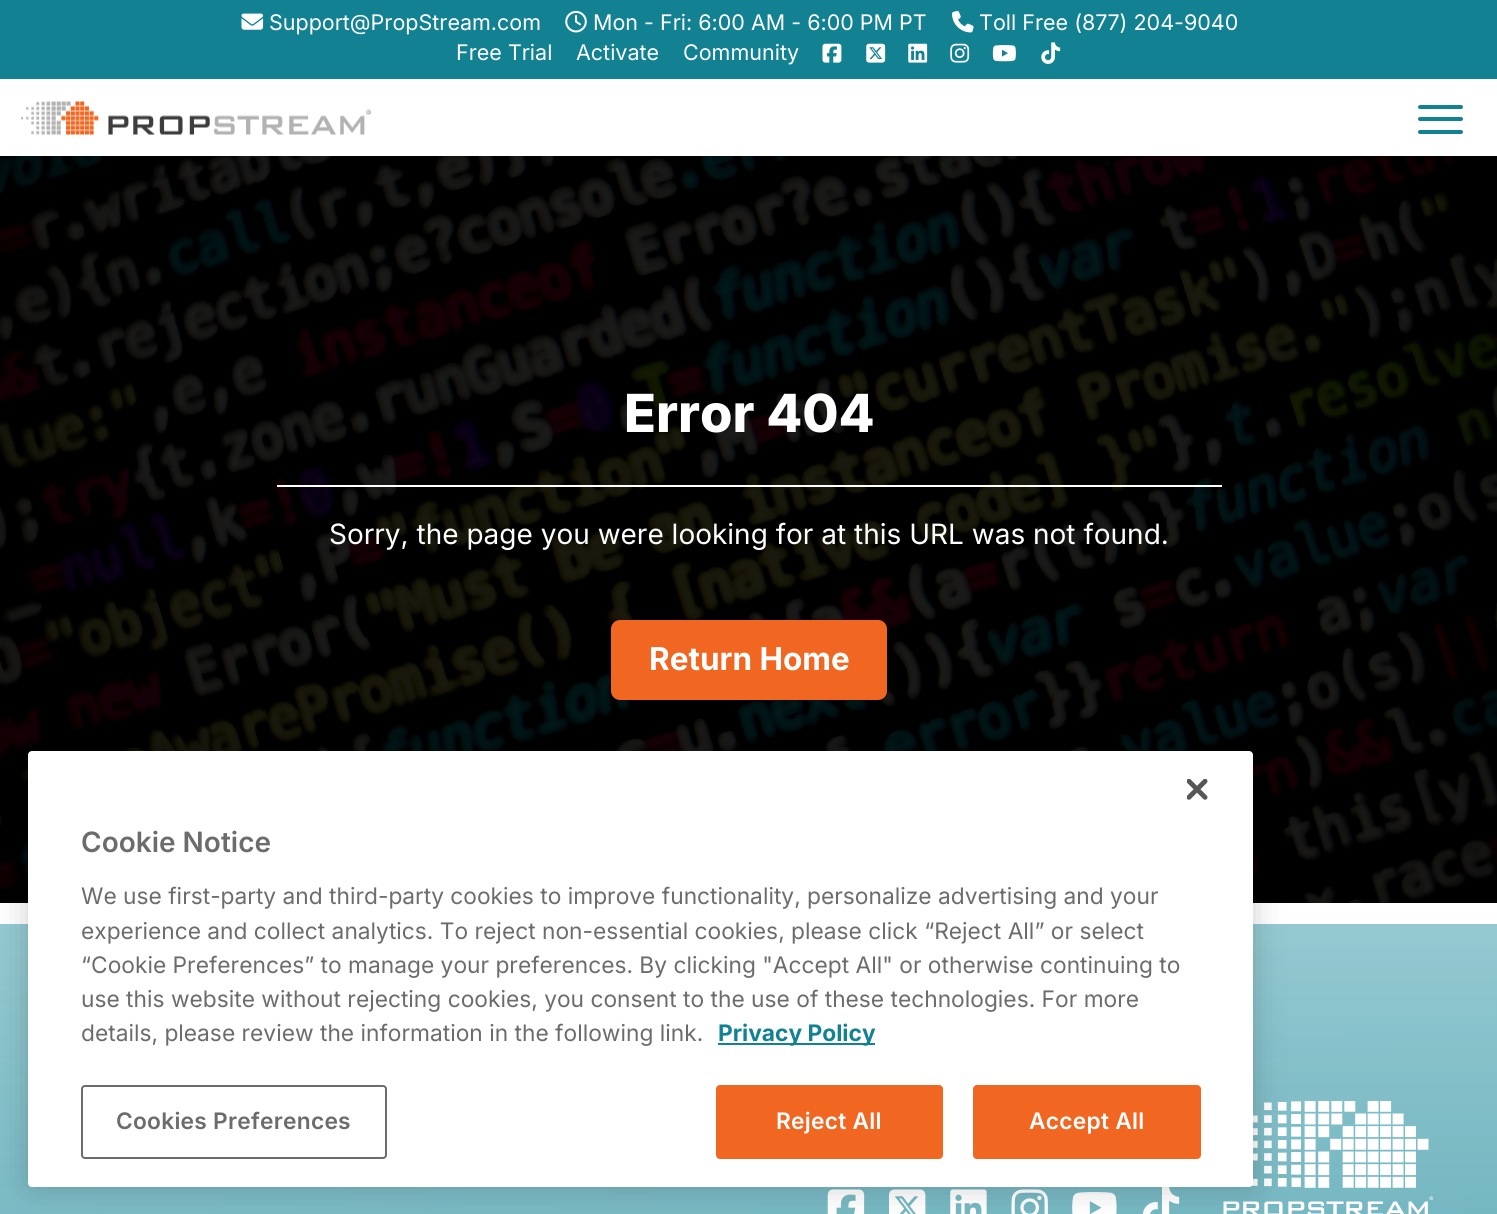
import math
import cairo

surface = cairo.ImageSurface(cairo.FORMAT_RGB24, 1497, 1214)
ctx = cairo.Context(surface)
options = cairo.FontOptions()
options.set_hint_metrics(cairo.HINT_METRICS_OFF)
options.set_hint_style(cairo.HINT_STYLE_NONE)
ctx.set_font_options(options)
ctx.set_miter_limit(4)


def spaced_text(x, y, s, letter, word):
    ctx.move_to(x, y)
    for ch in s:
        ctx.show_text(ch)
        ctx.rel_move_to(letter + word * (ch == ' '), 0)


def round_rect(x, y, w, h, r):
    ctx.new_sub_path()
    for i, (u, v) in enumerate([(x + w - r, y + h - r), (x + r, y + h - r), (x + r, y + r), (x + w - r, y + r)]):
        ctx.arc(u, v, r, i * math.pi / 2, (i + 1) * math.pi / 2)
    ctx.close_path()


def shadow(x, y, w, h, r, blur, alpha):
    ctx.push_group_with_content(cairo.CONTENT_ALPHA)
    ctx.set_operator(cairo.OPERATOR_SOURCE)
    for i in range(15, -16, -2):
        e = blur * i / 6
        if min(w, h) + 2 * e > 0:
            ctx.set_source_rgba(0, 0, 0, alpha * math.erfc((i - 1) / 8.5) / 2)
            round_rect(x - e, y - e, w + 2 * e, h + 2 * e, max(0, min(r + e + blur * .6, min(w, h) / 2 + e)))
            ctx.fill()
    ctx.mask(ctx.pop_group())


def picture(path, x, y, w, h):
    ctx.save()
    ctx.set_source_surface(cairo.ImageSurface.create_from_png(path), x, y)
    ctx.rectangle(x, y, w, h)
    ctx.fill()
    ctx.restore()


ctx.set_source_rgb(1, 1, 1)
ctx.paint()
ctx.set_source_rgb(0.071, 0.51, 0.573)
ctx.rectangle(0, 0, 1497, 79)
ctx.fill()
picture("img1.png", 241, 13, 23, 17)
ctx.select_font_face("Inter")
ctx.set_font_size(21.5)
ctx.set_source_rgb(1, 1, 1)
ctx.move_to(269, 30)
ctx.show_text("Support@PropStream.com")
picture("img2.png", 565, 10, 22, 23)
ctx.move_to(593, 30)
ctx.show_text("Mon - Fri: 6:00 AM - 6:00 PM PT")
picture("img3.png", 952, 10, 22, 23)
ctx.move_to(979, 30)
ctx.show_text("Toll Free (877) 204-9040")
ctx.move_to(456, 60)
ctx.show_text("Free Trial")
ctx.move_to(576, 60)
ctx.show_text("Activate")
ctx.move_to(683, 60)
ctx.show_text("Community")
picture("img4.png", 822, 43, 20, 20)
picture("img5.png", 866, 43, 20, 20)
picture("img6.png", 908, 43, 20, 20)
picture("img7.png", 950, 43, 20, 20)
picture("img8.png", 992, 45, 24, 17)
picture("img9.png", 1041, 42, 20, 22)
picture("img10.png", 21, 101, 350, 34)
ctx.set_source_rgb(0.071, 0.51, 0.573)
round_rect(1418, 105, 45, 4, 2)
ctx.fill()
round_rect(1418, 117, 45, 4, 2)
ctx.fill()
round_rect(1418, 130, 45, 4, 2)
ctx.fill()
picture("img11.png", 0, 156, 1497, 747)
ctx.select_font_face("Inter ExtraBold")
ctx.set_font_size(52.5)
ctx.set_source_rgb(1, 1, 1)
ctx.move_to(624, 432)
ctx.show_text("Error 404")
ctx.rectangle(277, 485, 945, 2)
ctx.fill()
ctx.select_font_face("Inter")
ctx.set_font_size(28)
ctx.move_to(329, 544)
ctx.show_text("Sorry, the page you were looking for at this URL was not found.")
ctx.set_source_rgb(0.945, 0.404, 0.133)
round_rect(611, 620, 276, 80, 9)
ctx.fill()
ctx.select_font_face("Inter", cairo.FONT_SLANT_NORMAL, cairo.FONT_WEIGHT_BOLD)
ctx.set_font_size(31.5)
ctx.set_source_rgb(1, 1, 1)
ctx.move_to(649, 670)
ctx.show_text("Return Home")
picture("img13.png", 0, 924, 1497, 290)
picture("img14.png", 827, 1189, 38, 25)
picture("img15.png", 889, 1189, 37, 25)
picture("img16.png", 950, 1189, 37, 25)
picture("img17.png", 1011, 1189, 37, 25)
picture("img18.png", 1072, 1192, 45, 22)
picture("img19.png", 1142, 1187, 38, 27)
picture("img20.png", 1223, 1101, 210, 113)
ctx.set_source_rgb(0, 0, 0)
shadow(28, 751, 1225, 436, 4, 16, 0.2)
ctx.set_source_rgb(1, 1, 1)
round_rect(28, 751, 1225, 436, 4)
ctx.fill()
picture("img12.png", 1187, 779, 21, 21)
ctx.select_font_face("Inter SemiBold")
ctx.set_font_size(28)
ctx.set_source_rgb(0.424, 0.424, 0.424)
ctx.move_to(81, 852)
ctx.show_text("Cookie Notice")
ctx.select_font_face("Inter")
ctx.set_font_size(22.75)
ctx.move_to(81, 904)
ctx.show_text("We use first-party and third-party cookies to improve functionality, personalize advertising and your")
ctx.move_to(81, 939)
ctx.show_text("experience and collect analytics. To reject non-essential cookies, please click “Reject All” or select")
ctx.move_to(81, 973)
ctx.show_text("“Cookie Preferences” to manage your preferences. By clicking \"Accept All\" or otherwise continuing to")
ctx.move_to(81, 1007)
ctx.show_text("use this website without rejecting cookies, you consent to the use of these technologies. For more")
ctx.move_to(81, 1041)
ctx.show_text("details, please review the information in the following link.")
ctx.set_source_rgb(0.071, 0.51, 0.573)
ctx.rectangle(718, 1043, 157, 2)
ctx.fill()
ctx.select_font_face("Inter", cairo.FONT_SLANT_NORMAL, cairo.FONT_WEIGHT_BOLD)
ctx.move_to(718, 1041)
ctx.show_text("Privacy Policy")
round_rect(82, 1086, 304, 72, 3)
ctx.set_source_rgb(0.424, 0.424, 0.424)
ctx.stroke()
ctx.select_font_face("Inter SemiBold")
spaced_text(116, 1129, "Cookies Preferences", 0.25, 0)
ctx.set_source_rgb(0.945, 0.404, 0.133)
round_rect(717, 1086, 225, 72, 3)
ctx.fill_preserve()
ctx.stroke()
ctx.set_source_rgb(1, 1, 1)
spaced_text(776, 1129, "Reject All", 0.25, 0)
ctx.set_source_rgb(0.945, 0.404, 0.133)
round_rect(974, 1086, 226, 72, 3)
ctx.fill_preserve()
ctx.stroke()
ctx.set_source_rgb(1, 1, 1)
spaced_text(1029, 1129, "Accept All", 0.25, 0)
surface.write_to_png("page.png")
